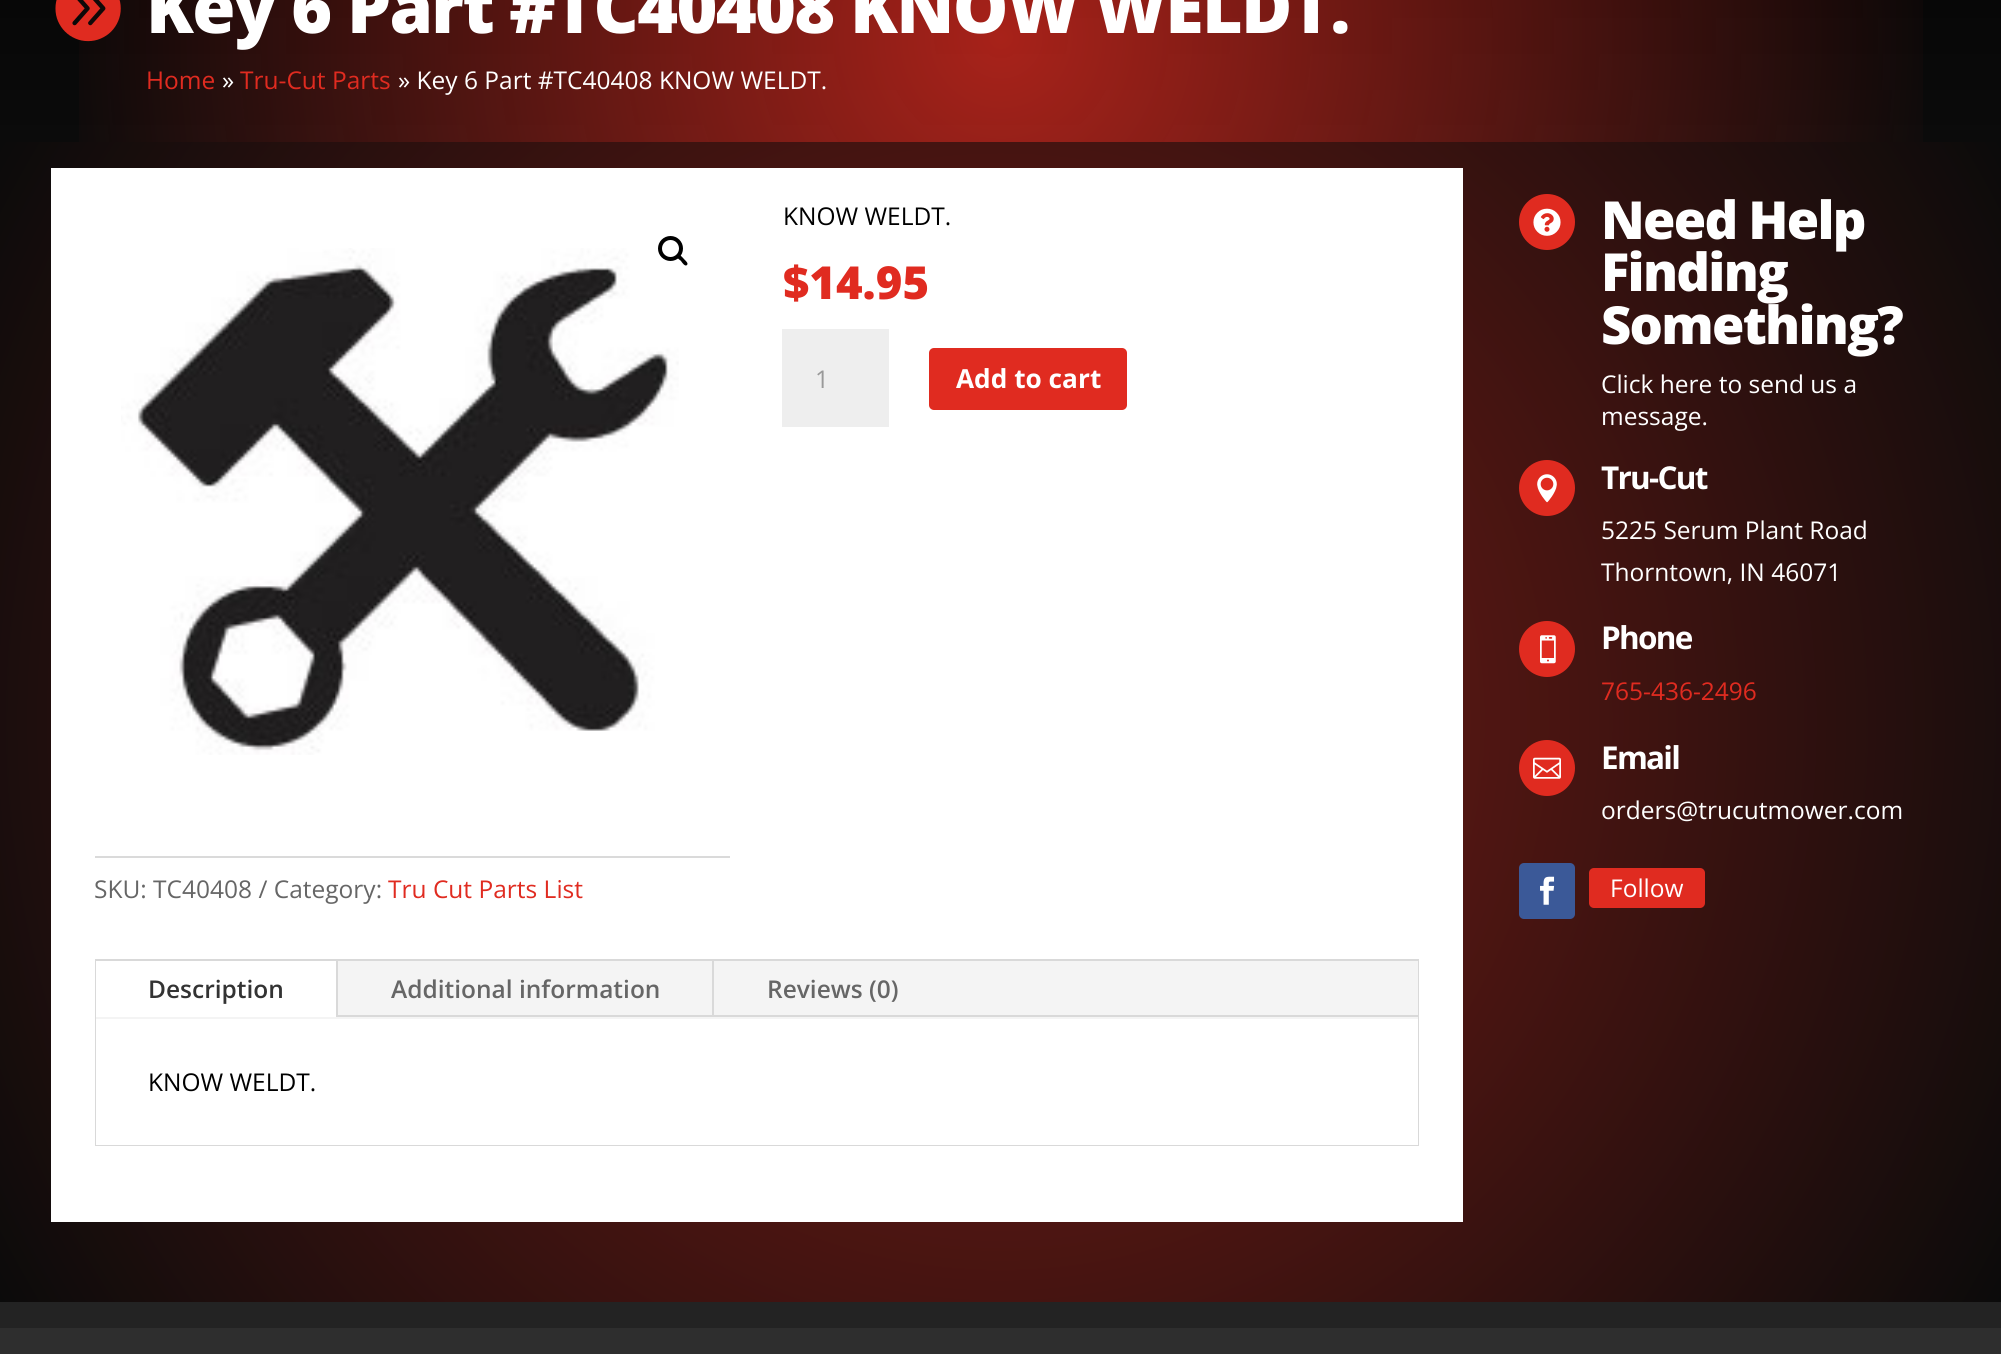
import math
import cairo

surface = cairo.ImageSurface(cairo.FORMAT_RGB24, 2001, 1354)
ctx = cairo.Context(surface)
options = cairo.FontOptions()
options.set_hint_metrics(cairo.HINT_METRICS_OFF)
options.set_hint_style(cairo.HINT_STYLE_NONE)
ctx.set_font_options(options)
ctx.set_miter_limit(4)


def spaced_text(x, y, s, letter, word):
    ctx.move_to(x, y)
    for ch in s:
        ctx.show_text(ch)
        ctx.rel_move_to(letter + word * (ch == ' '), 0)


def round_rect(x, y, w, h, r):
    ctx.new_sub_path()
    for i, (u, v) in enumerate([(x + w - r, y + h - r), (x + r, y + h - r), (x + r, y + r), (x + w - r, y + r)]):
        ctx.arc(u, v, r, i * math.pi / 2, (i + 1) * math.pi / 2)
    ctx.close_path()


def picture(path, x, y, w, h):
    ctx.save()
    ctx.set_source_surface(cairo.ImageSurface.create_from_png(path), x, y)
    ctx.rectangle(x, y, w, h)
    ctx.fill()
    ctx.restore()


ctx.set_source_rgb(0.137, 0.137, 0.137)
ctx.paint()
gradient = cairo.LinearGradient(1001, -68, 1001, 142)
gradient.add_color_stop_rgba(0, 0.02, 0.02, 0.02, 1)
gradient.add_color_stop_rgba(1, 0.043, 0.043, 0.043, 1)
ctx.set_source(gradient)
ctx.rectangle(0, 0, 2001, 142)
ctx.fill()
gradient = cairo.RadialGradient(1001, 37, 0, 1001, 37, 956)
gradient.add_color_stop_rgba(0, 0.878, 0.169, 0.125, 0.74)
gradient.add_color_stop_rgba(1, 0.878, 0.169, 0.125, 0)
ctx.set_source(gradient)
ctx.rectangle(79, 0, 1844, 142)
ctx.fill()
picture("img1.png", 55, 0, 66, 42)
ctx.select_font_face("Open Sans ExtraBold")
ctx.set_font_size(70)
ctx.set_source_rgb(1, 1, 1)
spaced_text(146, 33, "Key 6 Part #TC40408 KNOW WELDT.", -1.75, 0)
ctx.select_font_face("Open Sans")
ctx.set_font_size(24.5)
ctx.set_source_rgb(0.878, 0.169, 0.125)
ctx.move_to(146, 89)
ctx.show_text("Home")
ctx.set_source_rgb(1, 1, 1)
ctx.move_to(222, 89)
ctx.show_text("»")
ctx.set_source_rgb(0.878, 0.169, 0.125)
ctx.move_to(240, 89)
ctx.show_text("Tru-Cut Parts")
ctx.set_source_rgb(1, 1, 1)
ctx.move_to(398, 89)
ctx.show_text("» Key 6 Part #TC40408 KNOW WELDT.")
gradient = cairo.RadialGradient(1001, 722, 0, 1001, 722, 1157)
gradient.add_color_stop_rgba(0, 0.502, 0.114, 0.09, 1)
gradient.add_color_stop_rgba(1, 0.043, 0.043, 0.043, 1)
ctx.set_source(gradient)
ctx.rectangle(0, 142, 2001, 1160)
ctx.fill()
ctx.set_source_rgb(1, 1, 1)
ctx.rectangle(51, 168, 1412, 1054)
ctx.fill()
ctx.set_source_rgb(0, 0, 0)
ctx.move_to(783, 225)
ctx.show_text("KNOW WELDT.")
ctx.select_font_face("Open Sans ExtraBold")
ctx.set_font_size(45.5)
ctx.set_source_rgb(0.878, 0.169, 0.125)
ctx.move_to(783, 299)
ctx.show_text("$14.95")
ctx.set_source_rgb(0.933, 0.933, 0.933)
ctx.rectangle(782, 329, 107, 98)
ctx.fill()
ctx.select_font_face("Open Sans")
ctx.set_font_size(24.5)
ctx.set_source_rgb(0.6, 0.6, 0.6)
ctx.move_to(815, 388)
ctx.show_text("1")
ctx.set_source_rgb(0.878, 0.169, 0.125)
round_rect(929, 348, 198, 62, 5)
ctx.fill()
ctx.select_font_face("Open Sans", cairo.FONT_SLANT_NORMAL, cairo.FONT_WEIGHT_BOLD)
ctx.set_font_size(26.25)
ctx.set_source_rgb(1, 1, 1)
ctx.move_to(956, 388)
ctx.show_text("Add to cart")
picture("img2.png", 121, 248, 558, 507)
ctx.arc(670.5, 248.5, 10.5, 0, 2 * math.pi)
ctx.set_source_rgb(0, 0, 0)
ctx.set_line_width(4)
ctx.stroke()
ctx.new_path()
ctx.move_to(677, 255)
ctx.curve_to(679, 253, 682.5, 257.5, 683.5, 258.5)
ctx.curve_to(684.5, 260, 689, 263, 687, 265)
ctx.curve_to(685, 267, 682, 262.5, 681, 261)
ctx.curve_to(680, 260, 675, 257, 677, 255)
ctx.close_path()
ctx.fill()
ctx.set_source_rgb(0.855, 0.855, 0.855)
ctx.rectangle(95, 856, 635, 2)
ctx.fill()
ctx.select_font_face("Open Sans")
ctx.set_font_size(24.5)
ctx.set_source_rgb(0.4, 0.4, 0.4)
ctx.move_to(94, 898)
ctx.show_text("SKU: TC40408 / Category:")
ctx.set_source_rgb(0.878, 0.169, 0.125)
ctx.move_to(388, 898)
ctx.show_text("Tru Cut Parts List")
ctx.rectangle(96, 960, 1322, 185)
ctx.set_source_rgb(0.851, 0.851, 0.851)
ctx.set_line_width(2)
ctx.stroke()
ctx.set_source_rgb(0.957, 0.957, 0.957)
ctx.rectangle(96, 961, 1322, 58)
ctx.fill()
ctx.set_source_rgb(1, 1, 1)
ctx.rectangle(96, 961, 240, 56)
ctx.fill()
ctx.set_source_rgb(0.851, 0.851, 0.851)
ctx.rectangle(336, 961, 2, 56)
ctx.fill()
ctx.select_font_face("Open Sans SemiBold")
ctx.set_source_rgb(0.2, 0.2, 0.2)
ctx.move_to(148, 998)
ctx.show_text("Description")
ctx.set_source_rgb(0.851, 0.851, 0.851)
ctx.rectangle(338, 1015, 1080, 2)
ctx.fill()
ctx.rectangle(712, 961, 2, 56)
ctx.fill()
ctx.set_source_rgb(0.4, 0.4, 0.4)
ctx.move_to(391, 998)
ctx.show_text("Additional information")
ctx.move_to(767, 998)
ctx.show_text("Reviews (0)")
ctx.set_source_rgb(1, 1, 1)
ctx.rectangle(96, 1019, 1322, 126)
ctx.fill()
ctx.select_font_face("Open Sans")
ctx.set_source_rgb(0, 0, 0)
ctx.move_to(148, 1091)
ctx.show_text("KNOW WELDT.")
ctx.set_source_rgb(0.878, 0.169, 0.125)
ctx.new_path()
ctx.arc(1547, 222, 28, 0, 2 * math.pi)
ctx.fill()
picture("img3.png", 1533, 208, 28, 28)
ctx.select_font_face("Open Sans ExtraBold")
ctx.set_font_size(52.5)
ctx.set_source_rgb(1, 1, 1)
spaced_text(1601, 239, "Need Help", -1.75, 0)
spaced_text(1601, 291, "Finding", -1.75, 0)
spaced_text(1601, 344, "Something?", -1.75, 0)
ctx.select_font_face("Open Sans")
ctx.set_font_size(24.5)
ctx.move_to(1601, 393)
ctx.show_text("Click here to send us a")
ctx.move_to(1601, 425)
ctx.show_text("message.")
ctx.set_source_rgb(0.878, 0.169, 0.125)
ctx.new_path()
ctx.arc(1547, 488, 28, 0, 2 * math.pi)
ctx.fill()
picture("img4.png", 1537, 474, 20, 29)
ctx.select_font_face("Open Sans", cairo.FONT_SLANT_NORMAL, cairo.FONT_WEIGHT_BOLD)
ctx.set_font_size(31.5)
ctx.set_source_rgb(1, 1, 1)
spaced_text(1601, 489, "Tru-Cut", -1.75, 0)
ctx.select_font_face("Open Sans")
ctx.set_font_size(24.5)
ctx.move_to(1601, 539)
ctx.show_text("5225 Serum Plant Road")
ctx.move_to(1601, 581)
ctx.show_text("Thorntown, IN 46071")
ctx.set_source_rgb(0.878, 0.169, 0.125)
ctx.new_path()
ctx.arc(1547, 649, 28, 0, 2 * math.pi)
ctx.fill()
picture("img5.png", 1540, 635, 16, 29)
ctx.select_font_face("Open Sans", cairo.FONT_SLANT_NORMAL, cairo.FONT_WEIGHT_BOLD)
ctx.set_font_size(31.5)
ctx.set_source_rgb(1, 1, 1)
spaced_text(1601, 649, "Phone", -1.75, 0)
ctx.select_font_face("Open Sans")
ctx.set_font_size(24.5)
ctx.set_source_rgb(0.878, 0.169, 0.125)
ctx.move_to(1601, 700)
ctx.show_text("765-436-2496")
ctx.new_path()
ctx.arc(1547, 768, 28, 0, 2 * math.pi)
ctx.fill()
picture("img6.png", 1533, 757, 28, 22)
ctx.select_font_face("Open Sans", cairo.FONT_SLANT_NORMAL, cairo.FONT_WEIGHT_BOLD)
ctx.set_font_size(31.5)
ctx.set_source_rgb(1, 1, 1)
spaced_text(1601, 769, "Email", -1.75, 0)
ctx.select_font_face("Open Sans")
ctx.set_font_size(24.5)
ctx.move_to(1601, 819)
ctx.show_text("orders@trucutmower.com")
ctx.set_source_rgb(0.231, 0.349, 0.596)
round_rect(1519, 863, 56, 56, 5)
ctx.fill()
picture("img7.png", 1540, 876, 15, 29)
ctx.set_source_rgb(0.878, 0.169, 0.125)
round_rect(1589, 868, 116, 40, 5)
ctx.fill()
ctx.set_source_rgb(1, 1, 1)
ctx.move_to(1610, 897)
ctx.show_text("Follow")
ctx.set_source_rgb(0.18, 0.18, 0.18)
ctx.rectangle(0, 1328, 2001, 26)
ctx.fill()
surface.write_to_png("page.png")
